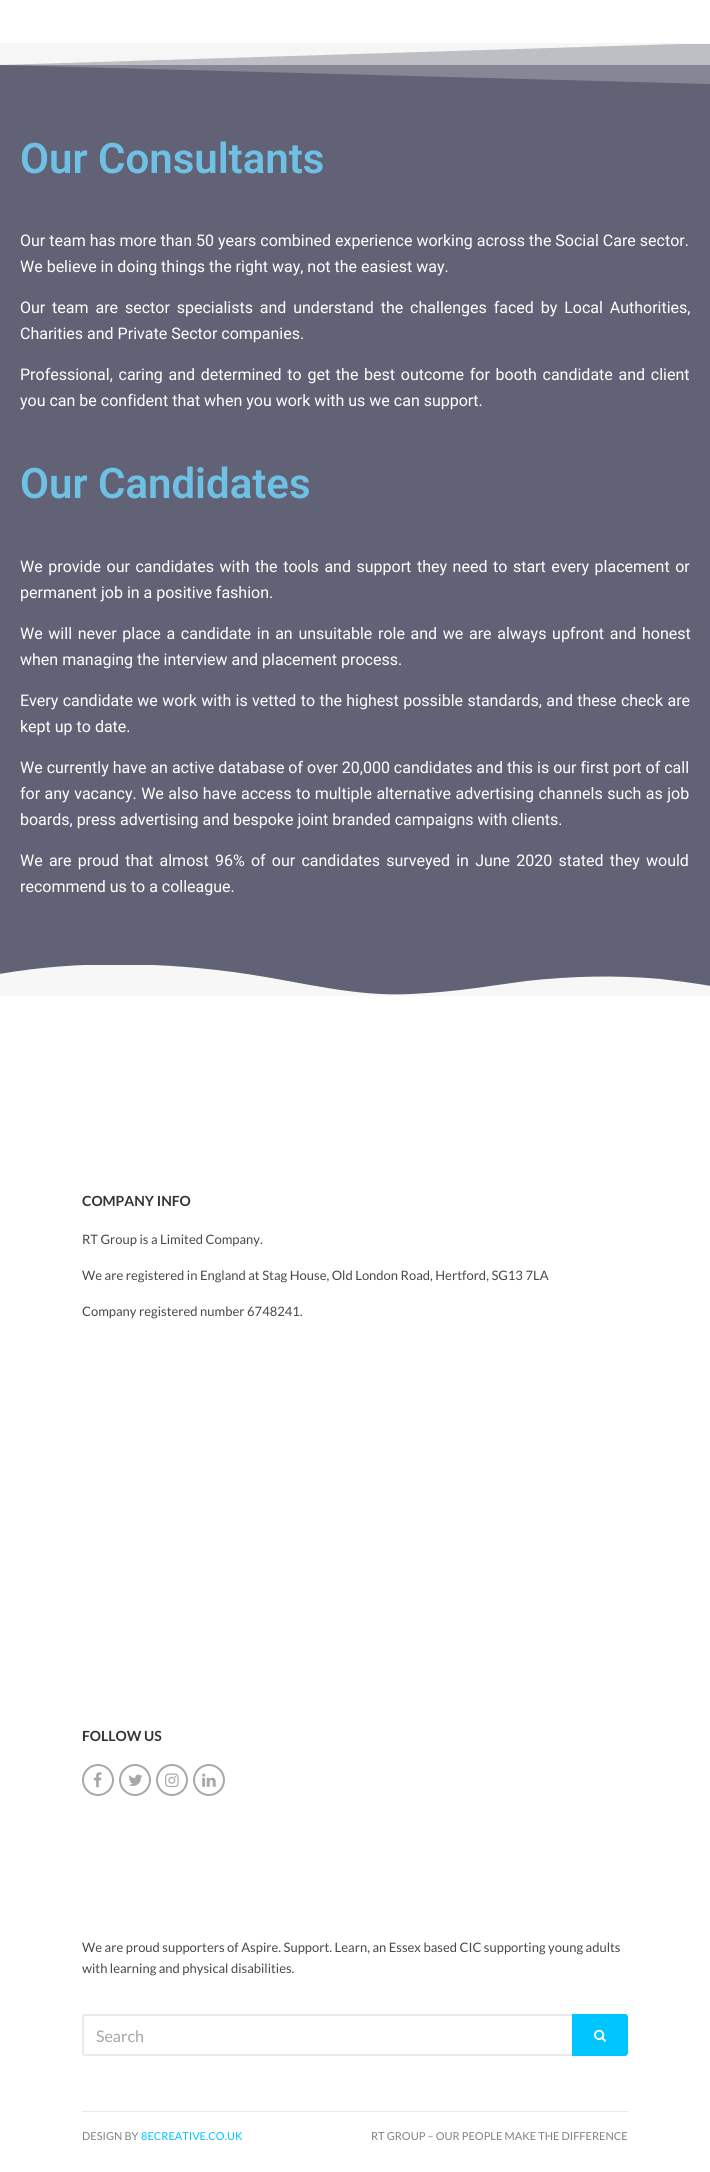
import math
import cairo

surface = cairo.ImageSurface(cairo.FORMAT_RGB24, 710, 2172)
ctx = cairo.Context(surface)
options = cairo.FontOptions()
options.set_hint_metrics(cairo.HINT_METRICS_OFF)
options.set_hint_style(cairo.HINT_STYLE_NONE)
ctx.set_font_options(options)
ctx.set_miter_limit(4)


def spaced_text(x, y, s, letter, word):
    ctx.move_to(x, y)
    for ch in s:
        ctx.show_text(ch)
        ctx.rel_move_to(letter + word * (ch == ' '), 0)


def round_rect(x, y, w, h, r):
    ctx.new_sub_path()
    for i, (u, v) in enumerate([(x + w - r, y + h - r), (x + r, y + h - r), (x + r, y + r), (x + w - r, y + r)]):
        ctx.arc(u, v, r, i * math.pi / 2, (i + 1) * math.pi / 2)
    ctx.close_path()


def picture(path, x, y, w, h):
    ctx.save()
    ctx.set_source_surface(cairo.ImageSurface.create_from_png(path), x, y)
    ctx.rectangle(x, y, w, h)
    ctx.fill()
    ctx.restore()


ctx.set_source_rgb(1, 1, 1)
ctx.paint()
ctx.set_source_rgb(0.984, 0.984, 0.984)
ctx.rectangle(680, 43, 30, 1)
ctx.fill()
ctx.set_source_rgb(0.675, 0.675, 0.714)
ctx.rectangle(0, 44, 710, 21)
ctx.fill()
ctx.set_source_rgb(0.965, 0.965, 0.965)
ctx.new_path()
ctx.move_to(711, 43)
ctx.line_to(-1, 43)
ctx.line_to(-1, 65)
ctx.close_path()
ctx.fill()
ctx.set_source_rgb(0.38, 0.384, 0.459)
ctx.rectangle(0, 65, 710, 930)
ctx.fill()
ctx.set_source_rgba(0.965, 0.965, 0.965, 0.25)
ctx.new_path()
ctx.move_to(-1, 43)
ctx.line_to(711, 43)
ctx.line_to(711, 84)
ctx.line_to(-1, 65)
ctx.close_path()
ctx.fill()
ctx.select_font_face("Roboto SemiBold")
ctx.set_font_size(42)
ctx.set_source_rgb(0.431, 0.757, 0.894)
ctx.move_to(20, 173)
ctx.show_text("Our Consultants")
ctx.select_font_face("Roboto")
ctx.set_font_size(16)
ctx.set_source_rgb(1, 1, 1)
ctx.move_to(20, 246)
ctx.show_text("Our team has more than 50 years combined experience working across the Social Care sector.")
ctx.move_to(20, 272)
ctx.show_text("We believe in doing things the right way, not the easiest way.")
spaced_text(20, 313, "Our team are sector specialists and understand the challenges faced by Local Authorities,", 0, 2.9)
ctx.move_to(20, 339)
ctx.show_text("Charities and Private Sector companies.")
spaced_text(20, 380, "Professional, caring and determined to get the best outcome for booth candidate and client", 0, 1.75)
ctx.move_to(20, 406)
ctx.show_text("you can be confident that when you work with us we can support.")
ctx.select_font_face("Roboto SemiBold")
ctx.set_font_size(42)
ctx.set_source_rgb(0.431, 0.757, 0.894)
ctx.move_to(20, 498)
ctx.show_text("Our Candidates")
ctx.select_font_face("Roboto")
ctx.set_font_size(16)
ctx.set_source_rgb(1, 1, 1)
spaced_text(20, 572, "We provide our candidates with the tools and support they need to start every placement or", 0, 1.6)
ctx.move_to(20, 598)
ctx.show_text("permanent job in a positive fashion.")
spaced_text(20, 639, "We will never place a candidate in an unsuitable role and we are always upfront and honest", 0, 1.7)
ctx.move_to(20, 665)
ctx.show_text("when managing the interview and placement process.")
spaced_text(20, 706, "Every candidate we work with is vetted to the highest possible standards, and these check are", 0, 0.4)
ctx.move_to(20, 732)
ctx.show_text("kept up to date.")
ctx.move_to(20, 773)
ctx.show_text("We currently have an active database of over 20,000 candidates and this is our first port of call")
spaced_text(20, 799, "for any vacancy. We also have access to multiple alternative advertising channels such as job", 0, 0.5)
ctx.move_to(20, 825)
ctx.show_text("boards, press advertising and bespoke joint branded campaigns with clients.")
spaced_text(20, 866, "We are proud that almost 96% of our candidates surveyed in June 2020 stated they would", 0, 2.25)
ctx.move_to(20, 892)
ctx.show_text("recommend us to a colleague.")
ctx.save()
ctx.rectangle(0, 965, 710, 32)
ctx.clip()
ctx.set_source_rgb(0.965, 0.965, 0.965)
ctx.new_path()
ctx.move_to(411, 994)
ctx.curve_to(355, 997, 301, 982, 247, 974)
ctx.curve_to(166, 962, 80, 960, -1, 974)
ctx.line_to(-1, 996)
ctx.line_to(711, 996)
ctx.line_to(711, 986)
ctx.curve_to(694, 983, 677, 981, 661, 979)
ctx.curve_to(616, 975, 571, 976, 526, 981)
ctx.line_to(476, 988)
ctx.curve_to(454, 991, 432, 993, 411, 994)
ctx.close_path()
ctx.fill()
ctx.restore()
ctx.select_font_face("Lato", cairo.FONT_SLANT_NORMAL, cairo.FONT_WEIGHT_BOLD)
ctx.set_font_size(14)
ctx.set_source_rgb(0.204, 0.204, 0.204)
ctx.move_to(82, 1206)
ctx.show_text("COMPANY INFO")
ctx.select_font_face("Lato")
ctx.set_font_size(13)
ctx.set_source_rgb(0.282, 0.282, 0.282)
ctx.move_to(82, 1244)
ctx.show_text("RT Group is a Limited Company.")
ctx.move_to(82, 1280)
ctx.show_text("We are registered in England at Stag House, Old London Road, Hertford, SG13 7LA")
ctx.move_to(82, 1316)
ctx.show_text("Company registered number 6748241.")
ctx.select_font_face("Lato", cairo.FONT_SLANT_NORMAL, cairo.FONT_WEIGHT_BOLD)
ctx.set_font_size(14)
ctx.set_source_rgb(0.204, 0.204, 0.204)
ctx.move_to(82, 1741)
ctx.show_text("FOLLOW US")
ctx.new_path()
ctx.arc(98, 1780, 15, 0, 2 * math.pi)
ctx.set_source_rgb(0.659, 0.659, 0.659)
ctx.stroke()
picture("img1.png", 93, 1772, 9, 16)
ctx.arc(135, 1780, 15, 0, 2 * math.pi)
ctx.stroke()
picture("img2.png", 128, 1774, 15, 12)
ctx.arc(172, 1780, 15, 0, 2 * math.pi)
ctx.stroke()
picture("img3.png", 165, 1773, 14, 15)
ctx.arc(209, 1780, 15, 0, 2 * math.pi)
ctx.stroke()
picture("img4.png", 202, 1773, 14, 14)
ctx.select_font_face("Lato")
ctx.set_font_size(13)
ctx.set_source_rgb(0.282, 0.282, 0.282)
ctx.move_to(82, 1952)
ctx.show_text("We are proud supporters of Aspire. Support. Learn, an Essex based CIC supporting young adults")
ctx.move_to(82, 1973)
ctx.show_text("with learning and physical disabilities.")
round_rect(83, 2015, 544, 40, 2)
ctx.set_source_rgb(0.914, 0.914, 0.914)
ctx.stroke()
ctx.set_font_size(16)
ctx.set_source_rgb(0.643, 0.643, 0.643)
ctx.move_to(96, 2042)
ctx.show_text("Search")
ctx.set_source_rgb(0, 0.776, 1)
ctx.new_path()
ctx.move_to(572, 2014)
ctx.line_to(625, 2014)
ctx.curve_to(626.5, 2014, 628, 2015.5, 628, 2017)
ctx.line_to(628, 2053)
ctx.curve_to(628, 2054.5, 626.5, 2056, 625, 2056)
ctx.line_to(572, 2056)
ctx.close_path()
ctx.fill()
picture("img5.png", 594, 2029, 12, 13)
ctx.new_path()
ctx.move_to(607.5, 2027.5)
ctx.curve_to(609.5, 2029.5, 610.5, 2032, 610.5, 2035)
ctx.curve_to(610.5, 2047.5, 592, 2049.5, 589.5, 2037)
ctx.curve_to(589, 2033.5, 590, 2030, 592.5, 2027.5)
ctx.set_line_width(3)
ctx.stroke()
ctx.set_source_rgb(0.914, 0.914, 0.914)
ctx.rectangle(82, 2111, 546, 1)
ctx.fill()
ctx.set_font_size(11)
ctx.set_source_rgb(0.51, 0.51, 0.51)
ctx.move_to(82, 2140)
ctx.show_text("DESIGN BY")
ctx.set_source_rgb(0, 0.776, 1)
ctx.move_to(141, 2140)
ctx.show_text("8ECREATIVE.CO.UK")
ctx.set_source_rgb(0.51, 0.51, 0.51)
ctx.move_to(371, 2140)
ctx.show_text("RT GROUP – OUR PEOPLE MAKE THE DIFFERENCE")
surface.write_to_png("page.png")
